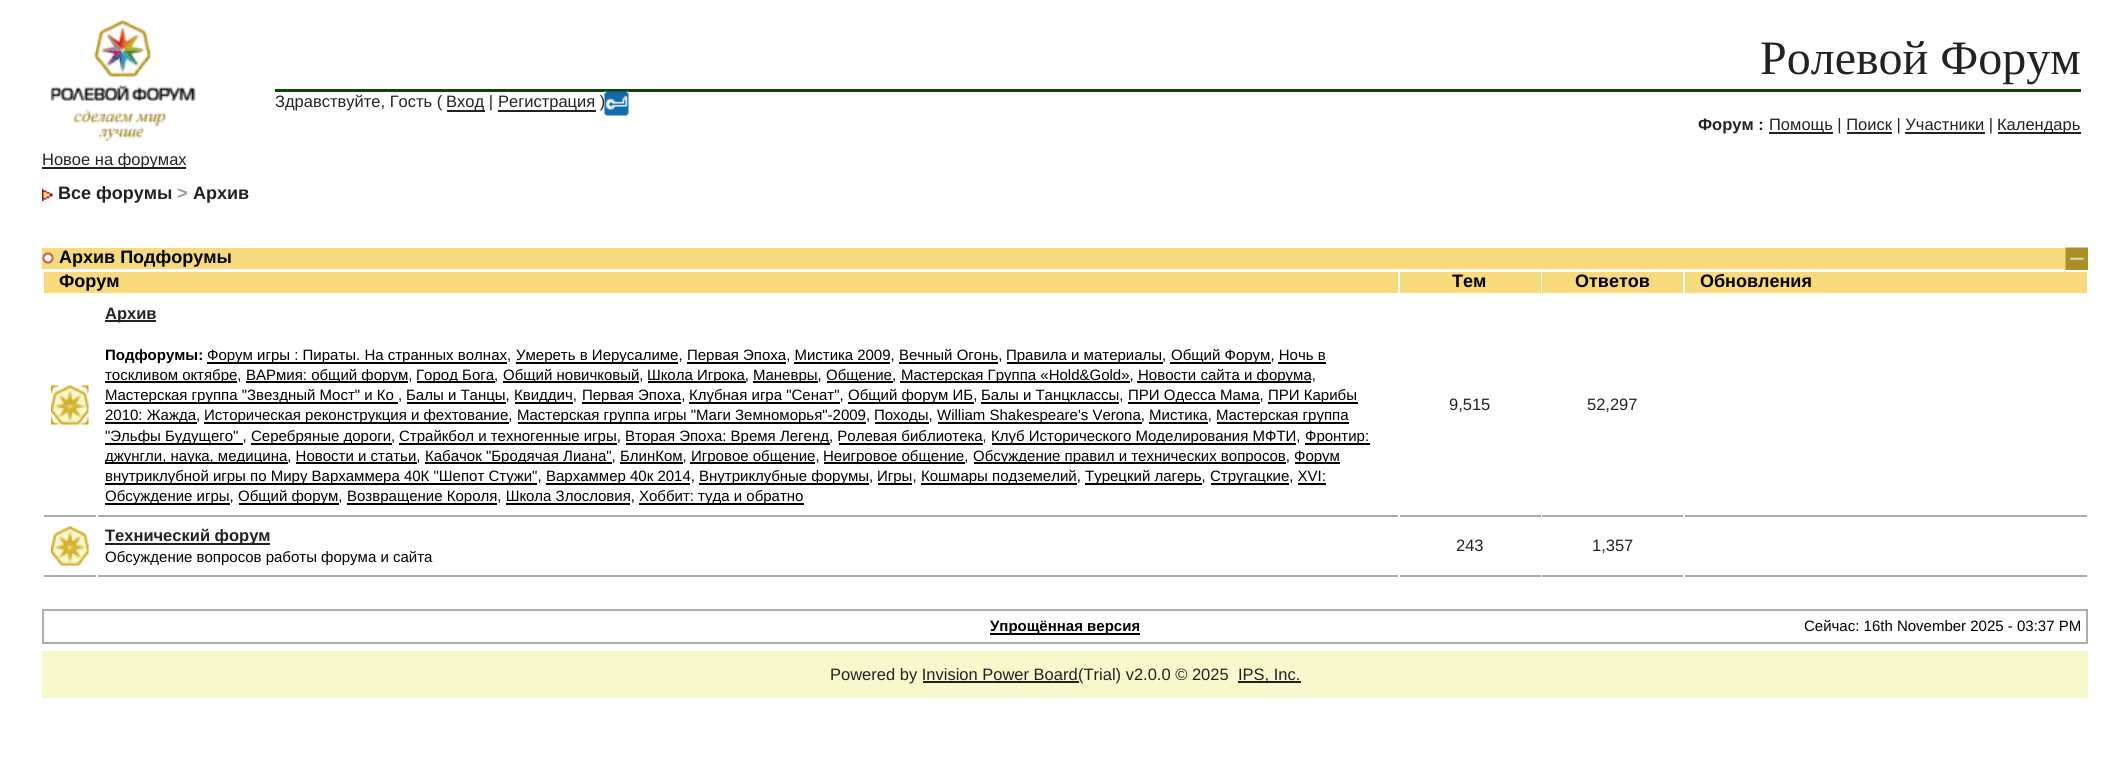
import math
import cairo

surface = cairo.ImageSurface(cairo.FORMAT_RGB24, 2112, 777)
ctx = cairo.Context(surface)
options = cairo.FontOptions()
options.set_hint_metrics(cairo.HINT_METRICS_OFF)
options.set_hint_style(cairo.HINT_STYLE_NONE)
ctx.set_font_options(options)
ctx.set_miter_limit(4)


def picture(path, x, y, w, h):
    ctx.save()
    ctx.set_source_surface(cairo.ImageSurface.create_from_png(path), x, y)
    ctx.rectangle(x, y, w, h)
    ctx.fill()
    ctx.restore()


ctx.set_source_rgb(1, 1, 1)
ctx.paint()
picture("img1.png", 50, 19, 146, 122)
ctx.set_source_rgb(0.055, 0.267, 0.039)
ctx.rectangle(275, 89, 1806, 3)
ctx.fill()
ctx.select_font_face("Liberation Serif")
ctx.set_font_size(48)
ctx.set_source_rgb(0.133, 0.133, 0.133)
ctx.move_to(1760, 74)
ctx.show_text("Ролевой Форум")
ctx.select_font_face("Liberation Sans")
ctx.set_font_size(16.5)
ctx.move_to(275, 107)
ctx.show_text("Здравствуйте, Гость (")
ctx.rectangle(447, 110, 38, 2)
ctx.fill()
ctx.move_to(446, 107)
ctx.show_text("Вход |")
ctx.rectangle(498, 110, 98, 2)
ctx.fill()
ctx.move_to(498, 107)
ctx.show_text("Регистрация )")
picture("img2.png", 604, 91, 25, 25)
ctx.select_font_face("Liberation Sans", cairo.FONT_SLANT_NORMAL, cairo.FONT_WEIGHT_BOLD)
ctx.move_to(1698, 130)
ctx.show_text("Форум :")
ctx.rectangle(1769, 132, 64, 2)
ctx.fill()
ctx.select_font_face("Liberation Sans")
ctx.move_to(1769, 130)
ctx.show_text("Помощь | Поиск | Участники |")
ctx.rectangle(1998, 132, 83, 2)
ctx.fill()
ctx.move_to(1997, 130)
ctx.show_text("Календарь")
ctx.rectangle(1847, 132, 45, 2)
ctx.fill()
ctx.rectangle(1905, 132, 80, 2)
ctx.fill()
ctx.rectangle(42, 167, 144, 2)
ctx.fill()
ctx.move_to(42, 165)
ctx.show_text("Новое на форумах")
picture("img3.png", 42, 189, 11, 12)
ctx.select_font_face("Liberation Sans", cairo.FONT_SLANT_NORMAL, cairo.FONT_WEIGHT_BOLD)
ctx.set_font_size(18)
ctx.move_to(58, 199)
ctx.show_text("Все форумы")
ctx.set_source_rgb(0.6, 0.6, 0.6)
ctx.move_to(177, 199)
ctx.show_text(">")
ctx.set_source_rgb(0.133, 0.133, 0.133)
ctx.move_to(193, 199)
ctx.show_text("Архив")
ctx.set_source_rgb(0.961, 0.855, 0.486)
ctx.rectangle(42, 248, 2024, 21)
ctx.fill()
picture("img4.png", 42, 252, 12, 12)
ctx.set_source_rgb(0, 0, 0)
ctx.move_to(59, 263)
ctx.show_text("Архив Подфорумы")
picture("img5.png", 2065, 247, 23, 23)
ctx.set_source_rgb(0.961, 0.855, 0.486)
ctx.rectangle(44, 272, 1354, 21)
ctx.fill()
ctx.set_source_rgb(0, 0, 0)
ctx.move_to(59, 287)
ctx.show_text("Форум")
ctx.set_source_rgb(0.961, 0.855, 0.486)
ctx.rectangle(1400, 272, 141, 21)
ctx.fill()
ctx.set_source_rgb(0, 0, 0)
ctx.move_to(1452, 287)
ctx.show_text("Тем")
ctx.set_source_rgb(0.961, 0.855, 0.486)
ctx.rectangle(1542, 272, 141, 21)
ctx.fill()
ctx.set_source_rgb(0, 0, 0)
ctx.move_to(1575, 287)
ctx.show_text("Ответов")
ctx.set_source_rgb(0.961, 0.855, 0.486)
ctx.rectangle(1685, 272, 402, 21)
ctx.fill()
ctx.set_source_rgb(0, 0, 0)
ctx.move_to(1700, 287)
ctx.show_text("Обновления")
ctx.set_source_rgb(0.659, 0.686, 0.655)
ctx.rectangle(44, 515, 52, 2)
ctx.fill()
picture("img6.png", 51, 385, 38, 40)
ctx.rectangle(98, 515, 1300, 2)
ctx.fill()
ctx.set_source_rgb(0.133, 0.133, 0.133)
ctx.rectangle(105, 320, 51, 2)
ctx.fill()
ctx.set_font_size(16.5)
ctx.move_to(105, 319)
ctx.show_text("Архив")
ctx.set_font_size(15)
ctx.set_source_rgb(0, 0, 0)
ctx.move_to(105, 360)
ctx.show_text("Подфорумы:")
ctx.rectangle(207, 362, 300, 2)
ctx.fill()
ctx.select_font_face("Liberation Sans")
ctx.move_to(207, 360)
ctx.show_text("Форум игры : Пираты. На странных волнах,")
ctx.rectangle(516, 362, 162, 2)
ctx.fill()
ctx.move_to(516, 360)
ctx.show_text("Умереть в Иерусалиме,")
ctx.rectangle(687, 362, 99, 2)
ctx.fill()
ctx.move_to(687, 360)
ctx.show_text("Первая Эпоха, Мистика 2009, Вечный Огонь,")
ctx.rectangle(794, 362, 96, 2)
ctx.fill()
ctx.rectangle(899, 362, 99, 2)
ctx.fill()
ctx.rectangle(1007, 362, 156, 2)
ctx.fill()
ctx.move_to(1006, 360)
ctx.show_text("Правила и материалы,")
ctx.rectangle(1170, 362, 101, 2)
ctx.fill()
ctx.move_to(1171, 360)
ctx.show_text("Общий Форум, Ночь в")
ctx.rectangle(1278, 362, 48, 2)
ctx.fill()
ctx.rectangle(105, 381, 132, 2)
ctx.fill()
ctx.move_to(105, 380)
ctx.show_text("тоскливом октябре,")
ctx.rectangle(246, 381, 162, 2)
ctx.fill()
ctx.move_to(246, 380)
ctx.show_text("ВАРмия: общий форум,")
ctx.rectangle(417, 381, 78, 2)
ctx.fill()
ctx.move_to(416, 380)
ctx.show_text("Город Бога,")
ctx.rectangle(503, 381, 136, 2)
ctx.fill()
ctx.move_to(503, 380)
ctx.show_text("Общий новичковый,")
ctx.rectangle(648, 381, 98, 2)
ctx.fill()
ctx.move_to(647, 380)
ctx.show_text("Школа Игрока,")
ctx.rectangle(753, 381, 65, 2)
ctx.fill()
ctx.move_to(753, 380)
ctx.show_text("Маневры,")
ctx.rectangle(827, 381, 66, 2)
ctx.fill()
ctx.move_to(826, 380)
ctx.show_text("Общение,")
ctx.rectangle(900, 381, 230, 2)
ctx.fill()
ctx.move_to(901, 380)
ctx.show_text("Мастерская Группа «Hold&Gold»,")
ctx.rectangle(1137, 381, 174, 2)
ctx.fill()
ctx.move_to(1138, 380)
ctx.show_text("Новости сайта и форума,")
ctx.rectangle(105, 402, 293, 2)
ctx.fill()
ctx.move_to(105, 400)
ctx.show_text("Мастерская группа \"Звездный Мост\" и Ко ,")
ctx.rectangle(407, 402, 99, 2)
ctx.fill()
ctx.move_to(406, 400)
ctx.show_text("Балы и Танцы,")
ctx.rectangle(515, 402, 58, 2)
ctx.fill()
ctx.move_to(514, 400)
ctx.show_text("Квиддич,")
ctx.rectangle(582, 402, 99, 2)
ctx.fill()
ctx.move_to(582, 400)
ctx.show_text("Первая Эпоха,")
ctx.rectangle(689, 402, 151, 2)
ctx.fill()
ctx.move_to(689, 400)
ctx.show_text("Клубная игра \"Сенат\",")
ctx.rectangle(848, 402, 126, 2)
ctx.fill()
ctx.move_to(848, 400)
ctx.show_text("Общий форум ИБ,")
ctx.rectangle(981, 402, 138, 2)
ctx.fill()
ctx.move_to(981, 400)
ctx.show_text("Балы и Танцклассы,")
ctx.rectangle(1128, 402, 132, 2)
ctx.fill()
ctx.move_to(1128, 400)
ctx.show_text("ПРИ Одесса Мама,")
ctx.rectangle(1268, 402, 90, 2)
ctx.fill()
ctx.move_to(1268, 400)
ctx.show_text("ПРИ Карибы")
ctx.rectangle(105, 422, 92, 2)
ctx.fill()
ctx.move_to(105, 420)
ctx.show_text("2010: Жажда,")
ctx.rectangle(204, 422, 305, 2)
ctx.fill()
ctx.move_to(204, 420)
ctx.show_text("Историческая реконструкция и фехтование,")
ctx.rectangle(518, 422, 348, 2)
ctx.fill()
ctx.move_to(517, 420)
ctx.show_text("Мастерская группа игры \"Маги Земноморья\"-2009,")
ctx.rectangle(875, 422, 54, 2)
ctx.fill()
ctx.move_to(874, 420)
ctx.show_text("Походы,")
ctx.rectangle(938, 422, 204, 2)
ctx.fill()
ctx.move_to(937, 420)
ctx.show_text("William Shakespeare's Verona, Мистика,")
ctx.rectangle(1149, 422, 59, 2)
ctx.fill()
ctx.rectangle(1217, 422, 132, 2)
ctx.fill()
ctx.move_to(1216, 420)
ctx.show_text("Мастерская группа")
ctx.rectangle(105, 443, 138, 2)
ctx.fill()
ctx.move_to(105, 441)
ctx.show_text("\"Эльфы Будущего\" ,")
ctx.rectangle(251, 443, 141, 2)
ctx.fill()
ctx.move_to(251, 441)
ctx.show_text("Серебряные дороги,")
ctx.rectangle(399, 443, 218, 2)
ctx.fill()
ctx.move_to(399, 441)
ctx.show_text("Страйкбол и техногенные игры,")
ctx.rectangle(626, 443, 204, 2)
ctx.fill()
ctx.move_to(625, 441)
ctx.show_text("Вторая Эпоха: Время Легенд, Ролевая библиотека,")
ctx.rectangle(839, 443, 144, 2)
ctx.fill()
ctx.rectangle(992, 443, 304, 2)
ctx.fill()
ctx.move_to(991, 441)
ctx.show_text("Клуб Исторического Моделирования МФТИ,")
ctx.rectangle(1305, 443, 65, 2)
ctx.fill()
ctx.move_to(1305, 441)
ctx.show_text("Фронтир:")
ctx.rectangle(105, 462, 183, 2)
ctx.fill()
ctx.move_to(105, 461)
ctx.show_text("джунгли, наука, медицина, Новости и статьи,")
ctx.rectangle(296, 462, 121, 2)
ctx.fill()
ctx.rectangle(425, 462, 187, 2)
ctx.fill()
ctx.move_to(425, 461)
ctx.show_text("Кабачок \"Бродячая Лиана\", БлинКом,")
ctx.rectangle(620, 462, 63, 2)
ctx.fill()
ctx.rectangle(690, 462, 125, 2)
ctx.fill()
ctx.move_to(691, 461)
ctx.show_text("Игровое общение,")
ctx.rectangle(824, 462, 141, 2)
ctx.fill()
ctx.move_to(823, 461)
ctx.show_text("Неигровое общение,")
ctx.rectangle(974, 462, 312, 2)
ctx.fill()
ctx.move_to(973, 461)
ctx.show_text("Обсуждение правил и технических вопросов,")
ctx.rectangle(1295, 462, 45, 2)
ctx.fill()
ctx.move_to(1294, 461)
ctx.show_text("Форум")
ctx.rectangle(105, 483, 432, 2)
ctx.fill()
ctx.move_to(105, 481)
ctx.show_text("внутриклубной игры по Миру Вархаммера 40К \"Шепот Стужи\",")
ctx.rectangle(546, 483, 144, 2)
ctx.fill()
ctx.move_to(546, 481)
ctx.show_text("Вархаммер 40к 2014,")
ctx.rectangle(699, 483, 170, 2)
ctx.fill()
ctx.move_to(699, 481)
ctx.show_text("Внутриклубные форумы,")
ctx.rectangle(878, 483, 34, 2)
ctx.fill()
ctx.move_to(877, 481)
ctx.show_text("Игры,")
ctx.rectangle(921, 483, 156, 2)
ctx.fill()
ctx.move_to(921, 481)
ctx.show_text("Кошмары подземелий,")
ctx.rectangle(1085, 483, 117, 2)
ctx.fill()
ctx.move_to(1085, 481)
ctx.show_text("Турецкий лагерь,")
ctx.rectangle(1211, 483, 78, 2)
ctx.fill()
ctx.move_to(1210, 481)
ctx.show_text("Стругацкие, XVI:")
ctx.rectangle(1298, 483, 28, 2)
ctx.fill()
ctx.rectangle(105, 503, 125, 2)
ctx.fill()
ctx.move_to(105, 501)
ctx.show_text("Обсуждение игры,")
ctx.rectangle(239, 503, 100, 2)
ctx.fill()
ctx.move_to(238, 501)
ctx.show_text("Общий форум,")
ctx.rectangle(347, 503, 150, 2)
ctx.fill()
ctx.move_to(347, 501)
ctx.show_text("Возвращение Короля, Школа Злословия,")
ctx.rectangle(506, 503, 124, 2)
ctx.fill()
ctx.rectangle(639, 503, 165, 2)
ctx.fill()
ctx.move_to(639, 501)
ctx.show_text("Хоббит: туда и обратно")
ctx.set_source_rgb(0.659, 0.686, 0.655)
ctx.rectangle(1400, 515, 141, 2)
ctx.fill()
ctx.set_font_size(16.5)
ctx.set_source_rgb(0.133, 0.133, 0.133)
ctx.move_to(1449, 410)
ctx.show_text("9,515")
ctx.set_source_rgb(0.659, 0.686, 0.655)
ctx.rectangle(1542, 515, 141, 2)
ctx.fill()
ctx.set_source_rgb(0.133, 0.133, 0.133)
ctx.move_to(1587, 410)
ctx.show_text("52,297")
ctx.set_source_rgb(0.659, 0.686, 0.655)
ctx.rectangle(1685, 515, 402, 2)
ctx.fill()
ctx.rectangle(44, 575, 52, 2)
ctx.fill()
picture("img7.png", 51, 526, 38, 40)
ctx.rectangle(98, 575, 1300, 2)
ctx.fill()
ctx.set_source_rgb(0.133, 0.133, 0.133)
ctx.rectangle(105, 543, 165, 2)
ctx.fill()
ctx.select_font_face("Liberation Sans", cairo.FONT_SLANT_NORMAL, cairo.FONT_WEIGHT_BOLD)
ctx.move_to(105, 541)
ctx.show_text("Технический форум")
ctx.select_font_face("Liberation Sans")
ctx.set_font_size(15)
ctx.set_source_rgb(0, 0, 0)
ctx.move_to(105, 562)
ctx.show_text("Обсуждение вопросов работы форума и сайта")
ctx.set_source_rgb(0.659, 0.686, 0.655)
ctx.rectangle(1400, 575, 141, 2)
ctx.fill()
ctx.set_font_size(16.5)
ctx.set_source_rgb(0.133, 0.133, 0.133)
ctx.move_to(1456, 551)
ctx.show_text("243")
ctx.set_source_rgb(0.659, 0.686, 0.655)
ctx.rectangle(1542, 575, 141, 2)
ctx.fill()
ctx.set_source_rgb(0.133, 0.133, 0.133)
ctx.move_to(1592, 551)
ctx.show_text("1,357")
ctx.set_source_rgb(0.659, 0.686, 0.655)
ctx.rectangle(1685, 575, 402, 2)
ctx.fill()
ctx.rectangle(43, 610, 2044, 33)
ctx.stroke()
ctx.set_source_rgb(0, 0, 0)
ctx.rectangle(990, 633, 150, 2)
ctx.fill()
ctx.select_font_face("Liberation Sans", cairo.FONT_SLANT_NORMAL, cairo.FONT_WEIGHT_BOLD)
ctx.set_font_size(15)
ctx.move_to(990, 631)
ctx.show_text("Упрощённая версия")
ctx.select_font_face("Liberation Sans")
ctx.move_to(1804, 631)
ctx.show_text("Сейчас: 16th November 2025 - 03:37 PM")
ctx.set_source_rgb(0.969, 0.969, 0.804)
ctx.rectangle(42, 651, 2046, 47)
ctx.fill()
ctx.set_font_size(16.5)
ctx.set_source_rgb(0.133, 0.133, 0.133)
ctx.move_to(830, 680)
ctx.show_text("Powered by Invision Power Board")
ctx.rectangle(923, 681, 156, 2)
ctx.fill()
ctx.move_to(1078, 680)
ctx.show_text("(Trial) v2.0.0 © 2025")
ctx.rectangle(1238, 681, 63, 2)
ctx.fill()
ctx.move_to(1238, 680)
ctx.show_text("IPS, Inc.")
surface.write_to_png("page.png")
